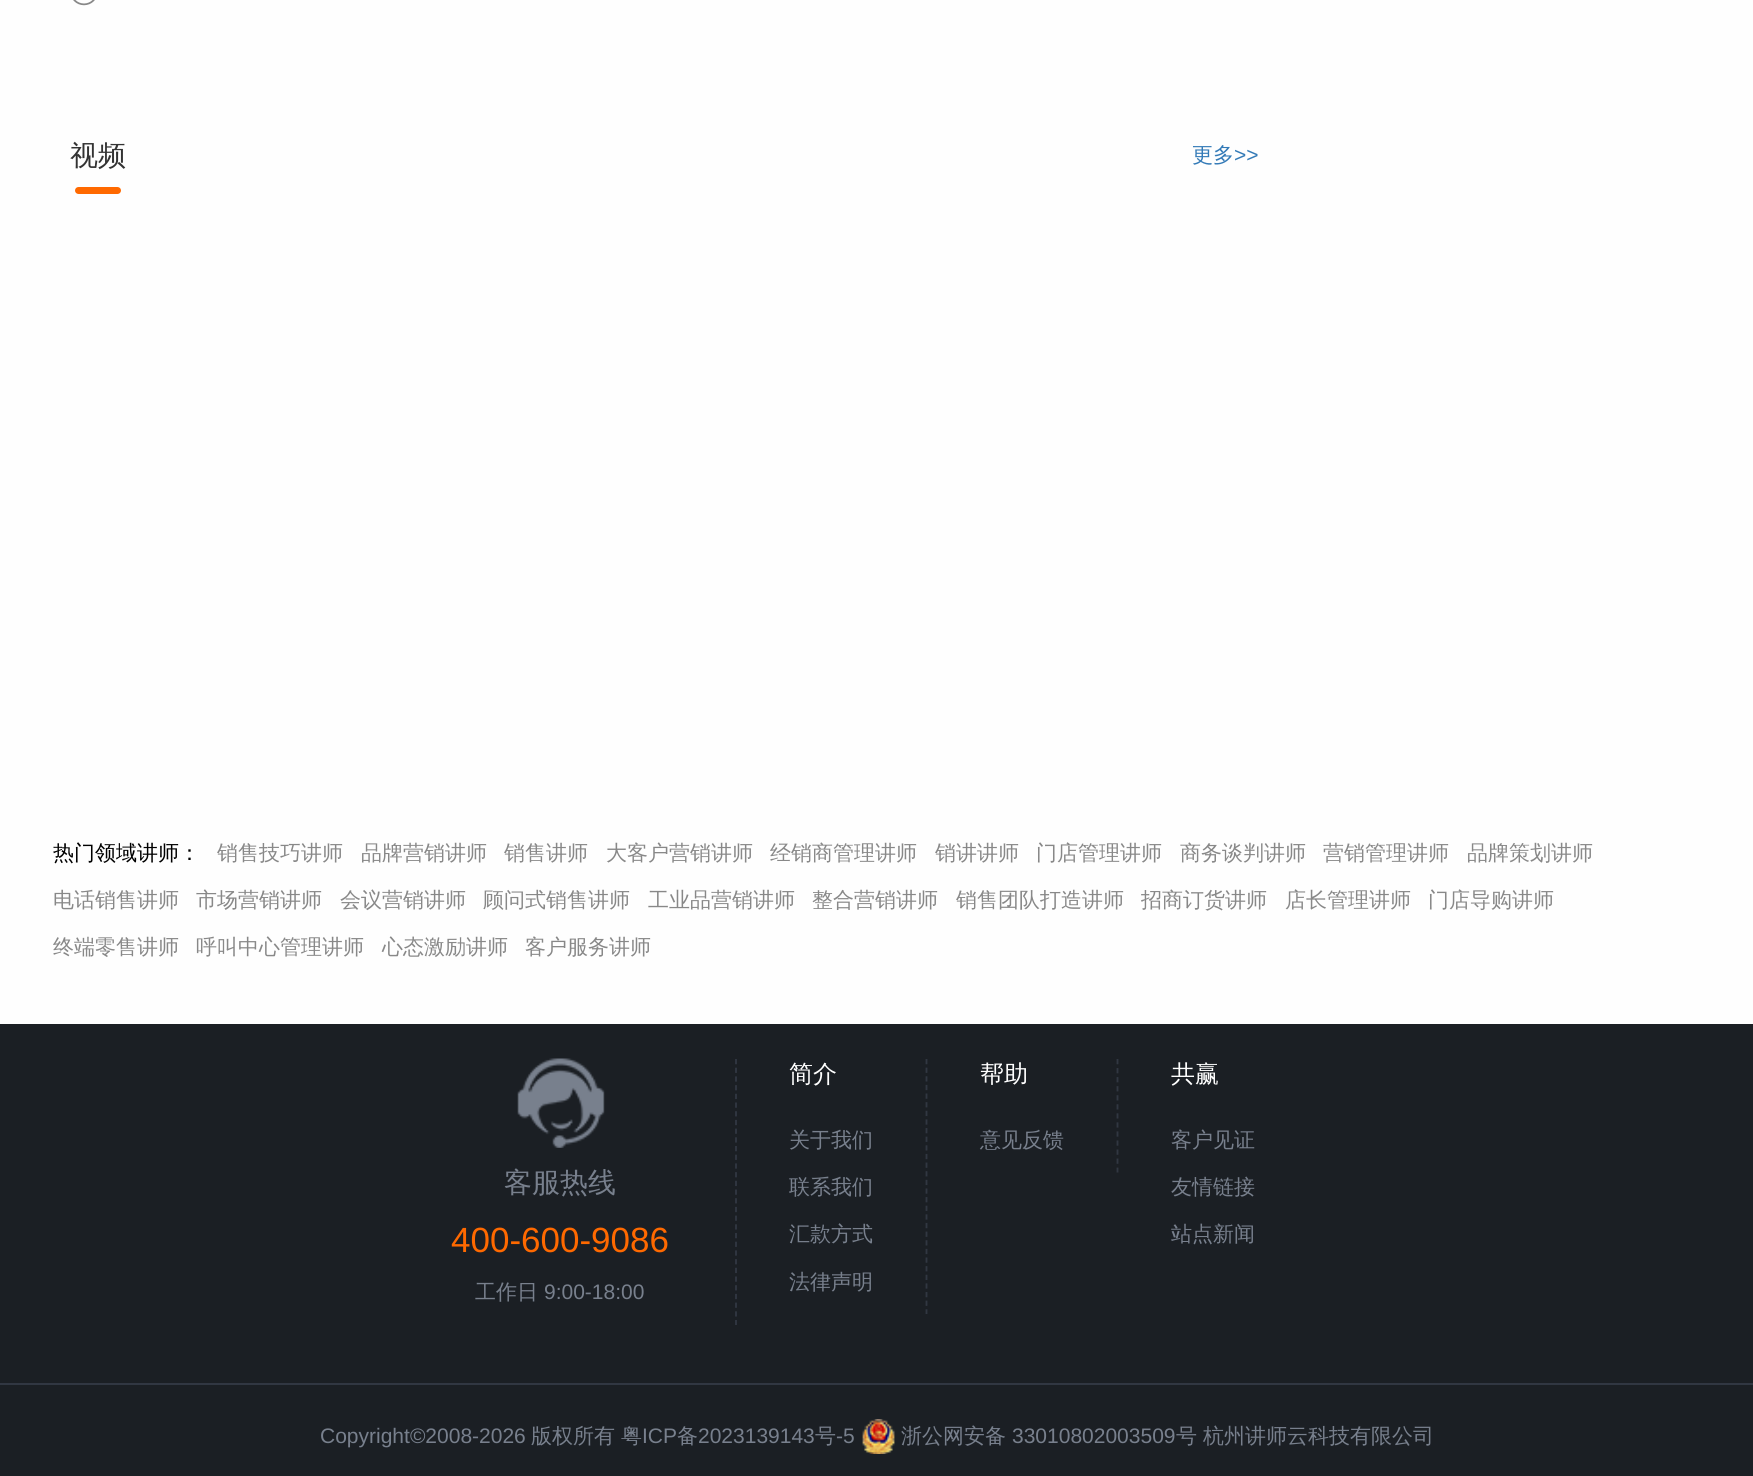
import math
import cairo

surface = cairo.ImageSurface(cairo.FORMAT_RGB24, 1753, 1476)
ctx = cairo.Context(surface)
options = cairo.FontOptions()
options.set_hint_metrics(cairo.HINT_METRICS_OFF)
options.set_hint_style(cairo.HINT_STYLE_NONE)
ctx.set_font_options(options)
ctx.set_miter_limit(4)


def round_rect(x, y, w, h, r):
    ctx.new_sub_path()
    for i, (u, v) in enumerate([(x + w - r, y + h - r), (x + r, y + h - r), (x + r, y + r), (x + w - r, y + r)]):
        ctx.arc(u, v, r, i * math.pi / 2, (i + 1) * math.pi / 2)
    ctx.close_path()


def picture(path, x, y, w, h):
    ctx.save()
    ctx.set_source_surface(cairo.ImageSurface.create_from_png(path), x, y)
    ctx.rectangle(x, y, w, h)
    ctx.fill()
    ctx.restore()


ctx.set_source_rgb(0.996, 0.996, 0.996)
ctx.paint()
picture("img1.png", 73, 0, 22, 6)
ctx.select_font_face("WenQuanYi Zen Hei Medium")
ctx.set_font_size(28)
ctx.set_source_rgb(0.2, 0.2, 0.2)
ctx.move_to(70, 165)
ctx.show_text("视频")
ctx.set_source_rgb(1, 0.412, 0)
round_rect(75, 187, 46, 7, 3.5)
ctx.fill()
ctx.set_font_size(21)
ctx.set_source_rgb(0.2, 0.478, 0.718)
ctx.move_to(1192, 162)
ctx.show_text("更多")
ctx.select_font_face("Liberation Sans")
ctx.move_to(1234, 162)
ctx.show_text(">>")
ctx.select_font_face("WenQuanYi Zen Hei Medium")
ctx.set_source_rgb(0, 0, 0)
ctx.move_to(53, 860)
ctx.show_text("热门领域讲师：")
ctx.set_source_rgb(0.533, 0.533, 0.533)
ctx.move_to(217, 860)
ctx.show_text("销售技巧讲师")
ctx.move_to(361, 860)
ctx.show_text("品牌营销讲师")
ctx.move_to(504, 860)
ctx.show_text("销售讲师")
ctx.move_to(606, 860)
ctx.show_text("大客户营销讲师")
ctx.move_to(770, 860)
ctx.show_text("经销商管理讲师")
ctx.move_to(935, 860)
ctx.show_text("销讲讲师")
ctx.move_to(1036, 860)
ctx.show_text("门店管理讲师")
ctx.move_to(1180, 860)
ctx.show_text("商务谈判讲师")
ctx.move_to(1323, 860)
ctx.show_text("营销管理讲师")
ctx.move_to(1467, 860)
ctx.show_text("品牌策划讲师")
ctx.move_to(53, 907)
ctx.show_text("电话销售讲师")
ctx.move_to(196, 907)
ctx.show_text("市场营销讲师")
ctx.move_to(340, 907)
ctx.show_text("会议营销讲师")
ctx.move_to(483, 907)
ctx.show_text("顾问式销售讲师")
ctx.move_to(648, 907)
ctx.show_text("工业品营销讲师")
ctx.move_to(812, 907)
ctx.show_text("整合营销讲师")
ctx.move_to(956, 907)
ctx.show_text("销售团队打造讲师")
ctx.move_to(1141, 907)
ctx.show_text("招商订货讲师")
ctx.move_to(1285, 907)
ctx.show_text("店长管理讲师")
ctx.move_to(1428, 907)
ctx.show_text("门店导购讲师")
ctx.move_to(53, 954)
ctx.show_text("终端零售讲师")
ctx.move_to(196, 954)
ctx.show_text("呼叫中心管理讲师")
ctx.move_to(382, 954)
ctx.show_text("心态激励讲师")
ctx.move_to(525, 954)
ctx.show_text("客户服务讲师")
ctx.set_source_rgb(0.106, 0.122, 0.141)
ctx.rectangle(0, 1024, 1753, 452)
ctx.fill()
ctx.new_path()
ctx.move_to(736, 1059)
ctx.line_to(736, 1325)
ctx.set_source_rgb(0.192, 0.216, 0.259)
ctx.set_line_width(1.8)
ctx.set_dash([5.25, 3.45])
ctx.stroke()
picture("img2.png", 517, 1058, 88, 90)
ctx.set_font_size(28)
ctx.set_source_rgb(0.471, 0.502, 0.553)
ctx.move_to(504, 1192)
ctx.show_text("客服热线")
ctx.select_font_face("Liberation Sans")
ctx.set_font_size(35)
ctx.set_source_rgb(1, 0.412, 0)
ctx.move_to(451, 1252)
ctx.show_text("400-600-9086")
ctx.select_font_face("WenQuanYi Zen Hei Medium")
ctx.set_font_size(21)
ctx.set_source_rgb(0.471, 0.502, 0.553)
ctx.move_to(475, 1299)
ctx.show_text("工作日")
ctx.select_font_face("Liberation Sans")
ctx.move_to(544, 1299)
ctx.show_text("9:00-18:00")
ctx.new_path()
ctx.move_to(926.5, 1059)
ctx.line_to(926.5, 1314)
ctx.set_source_rgb(0.192, 0.216, 0.259)
ctx.set_dash([5.25, 3.38])
ctx.stroke()
ctx.select_font_face("WenQuanYi Zen Hei Medium")
ctx.set_font_size(24)
ctx.set_source_rgb(1, 1, 1)
ctx.move_to(789, 1082)
ctx.show_text("简介")
ctx.set_font_size(21)
ctx.set_source_rgb(0.471, 0.502, 0.553)
ctx.move_to(789, 1147)
ctx.show_text("关于我们")
ctx.move_to(789, 1194)
ctx.show_text("联系我们")
ctx.move_to(789, 1241)
ctx.show_text("汇款方式")
ctx.move_to(789, 1289)
ctx.show_text("法律声明")
ctx.new_path()
ctx.move_to(1117.5, 1059)
ctx.line_to(1117.5, 1172.5)
ctx.set_source_rgb(0.192, 0.216, 0.259)
ctx.set_dash([5.25, 3.8])
ctx.stroke()
ctx.set_font_size(24)
ctx.set_source_rgb(1, 1, 1)
ctx.move_to(980, 1082)
ctx.show_text("帮助")
ctx.set_font_size(21)
ctx.set_source_rgb(0.471, 0.502, 0.553)
ctx.move_to(980, 1147)
ctx.show_text("意见反馈")
ctx.set_font_size(24)
ctx.set_source_rgb(1, 1, 1)
ctx.move_to(1171, 1082)
ctx.show_text("共赢")
ctx.set_font_size(21)
ctx.set_source_rgb(0.471, 0.502, 0.553)
ctx.move_to(1171, 1147)
ctx.show_text("客户见证")
ctx.move_to(1171, 1194)
ctx.show_text("友情链接")
ctx.move_to(1171, 1241)
ctx.show_text("站点新闻")
ctx.set_source_rgb(0.192, 0.216, 0.259)
ctx.rectangle(0, 1383, 1753, 2)
ctx.fill()
ctx.select_font_face("Liberation Sans")
ctx.set_source_rgb(0.471, 0.502, 0.553)
ctx.move_to(320, 1443)
ctx.show_text("Copyright©2008-2026")
ctx.select_font_face("WenQuanYi Zen Hei Medium")
ctx.move_to(531, 1443)
ctx.show_text("版权所有")
ctx.move_to(621, 1443)
ctx.show_text("粤")
ctx.select_font_face("Liberation Sans")
ctx.move_to(642, 1443)
ctx.show_text("ICP")
ctx.select_font_face("WenQuanYi Zen Hei Medium")
ctx.move_to(677, 1443)
ctx.show_text("备")
ctx.select_font_face("Liberation Sans")
ctx.move_to(698, 1443)
ctx.show_text("2023139143")
ctx.select_font_face("WenQuanYi Zen Hei Medium")
ctx.move_to(815, 1443)
ctx.show_text("号")
ctx.select_font_face("Liberation Sans")
ctx.move_to(836, 1443)
ctx.show_text("-5")
picture("img3.png", 862, 1419, 33, 35)
ctx.select_font_face("WenQuanYi Zen Hei Medium")
ctx.move_to(901, 1443)
ctx.show_text("浙公网安备")
ctx.select_font_face("Liberation Sans")
ctx.move_to(1012, 1443)
ctx.show_text("33010802003509")
ctx.select_font_face("WenQuanYi Zen Hei Medium")
ctx.move_to(1176, 1443)
ctx.show_text("号")
ctx.move_to(1203, 1443)
ctx.show_text("杭州讲师云科技有限公司")
surface.write_to_png("page.png")
